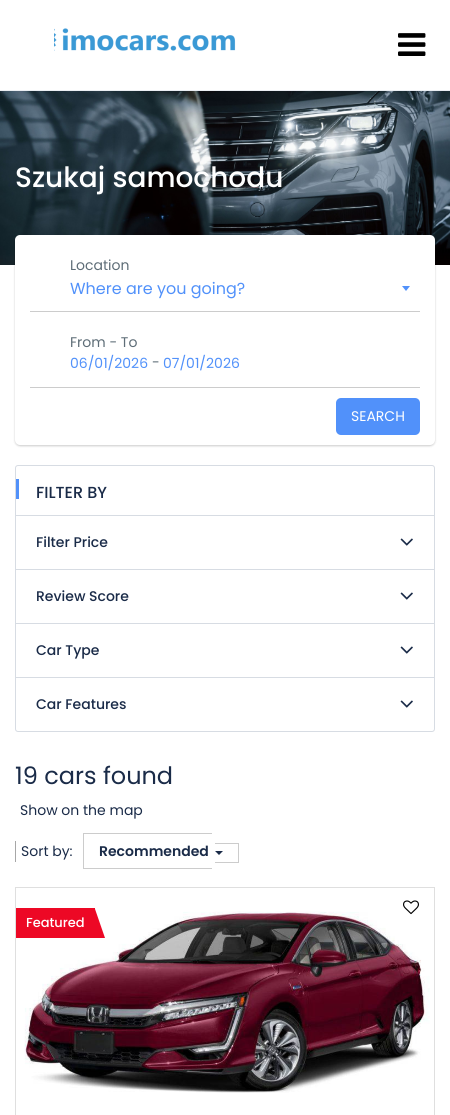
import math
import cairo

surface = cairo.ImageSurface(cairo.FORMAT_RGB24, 450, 1115)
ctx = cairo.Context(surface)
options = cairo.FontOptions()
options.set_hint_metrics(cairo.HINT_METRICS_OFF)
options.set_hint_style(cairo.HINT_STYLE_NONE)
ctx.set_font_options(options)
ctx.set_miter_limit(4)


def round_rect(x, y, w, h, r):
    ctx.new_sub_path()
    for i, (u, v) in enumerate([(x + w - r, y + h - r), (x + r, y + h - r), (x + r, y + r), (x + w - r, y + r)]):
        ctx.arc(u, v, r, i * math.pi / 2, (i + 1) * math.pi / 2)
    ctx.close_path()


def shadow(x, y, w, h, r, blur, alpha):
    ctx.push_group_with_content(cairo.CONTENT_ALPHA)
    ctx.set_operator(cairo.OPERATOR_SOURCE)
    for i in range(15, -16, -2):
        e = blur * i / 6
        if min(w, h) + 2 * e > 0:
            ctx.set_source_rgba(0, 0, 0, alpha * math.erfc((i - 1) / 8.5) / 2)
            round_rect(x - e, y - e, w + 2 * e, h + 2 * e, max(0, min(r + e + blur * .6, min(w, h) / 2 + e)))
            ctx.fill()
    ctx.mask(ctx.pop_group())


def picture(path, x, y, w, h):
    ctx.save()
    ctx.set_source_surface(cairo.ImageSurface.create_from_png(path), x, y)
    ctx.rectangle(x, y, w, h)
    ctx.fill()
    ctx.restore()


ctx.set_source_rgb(1, 1, 1)
ctx.paint()
ctx.set_source_rgb(0.918, 0.933, 0.953)
ctx.rectangle(0, 90, 450, 1)
ctx.fill()
picture("img1.png", 54, 28, 182, 23)
picture("img2.png", 398, 33, 28, 23)
picture("img3.png", 0, 91, 450, 174)
ctx.select_font_face("Poppins Medium")
ctx.set_font_size(28)
ctx.set_source_rgb(1, 1, 1)
ctx.move_to(15, 187)
ctx.show_text("Szukaj samochodu")
ctx.set_source_rgb(0, 0, 0)
shadow(15, 236, 420, 210, 5, 1, 0.2)
ctx.set_source_rgb(1, 1, 1)
round_rect(15, 235, 420, 210, 5)
ctx.fill()
ctx.set_source_rgb(0.8, 0.8, 0.8)
ctx.rectangle(30, 311, 390, 1)
ctx.fill()
ctx.select_font_face("Poppins")
ctx.set_font_size(14)
ctx.set_source_rgb(0.369, 0.427, 0.467)
ctx.move_to(70, 270)
ctx.show_text("Location")
ctx.set_font_size(16)
ctx.set_source_rgb(0.318, 0.569, 0.98)
ctx.move_to(70, 294)
ctx.show_text("Where are you going?")
ctx.new_path()
ctx.move_to(402, 286)
ctx.line_to(410, 286)
ctx.line_to(406, 291)
ctx.close_path()
ctx.fill()
ctx.set_source_rgb(0.8, 0.8, 0.8)
ctx.rectangle(30, 387, 390, 1)
ctx.fill()
ctx.set_font_size(14)
ctx.set_source_rgb(0.369, 0.427, 0.467)
ctx.move_to(70, 347)
ctx.show_text("From - To")
ctx.set_source_rgb(0.318, 0.569, 0.98)
ctx.move_to(70, 368)
ctx.show_text("06/01/2026")
ctx.set_source_rgb(0.369, 0.427, 0.467)
ctx.move_to(152, 367)
ctx.show_text("-")
ctx.set_source_rgb(0.318, 0.569, 0.98)
ctx.move_to(163, 368)
ctx.show_text("07/01/2026")
round_rect(336, 398, 84, 37, 5)
ctx.fill()
ctx.set_source_rgb(1, 1, 1)
ctx.move_to(351, 421)
ctx.show_text("SEARCH")
round_rect(15.5, 465.5, 419, 266, 2.5)
ctx.set_source_rgb(0.843, 0.863, 0.89)
ctx.set_line_width(1)
ctx.stroke()
ctx.set_source_rgb(0.318, 0.569, 0.98)
ctx.rectangle(16, 479, 3, 20)
ctx.fill()
ctx.select_font_face("Poppins Medium")
ctx.set_font_size(16)
ctx.set_source_rgb(0.102, 0.169, 0.282)
ctx.move_to(36, 498)
ctx.show_text("FILTER BY")
ctx.set_source_rgb(0.843, 0.863, 0.89)
ctx.rectangle(16, 515, 418, 1)
ctx.fill()
ctx.set_font_size(14)
ctx.set_source_rgb(0.102, 0.169, 0.282)
ctx.move_to(36, 547)
ctx.show_text("Filter Price")
picture("img4.png", 400, 538, 13, 8)
ctx.set_source_rgb(0.843, 0.863, 0.89)
ctx.rectangle(16, 569, 418, 1)
ctx.fill()
ctx.set_source_rgb(0.102, 0.169, 0.282)
ctx.move_to(36, 601)
ctx.show_text("Review Score")
picture("img4.png", 400, 592, 13, 8)
ctx.set_source_rgb(0.843, 0.863, 0.89)
ctx.rectangle(16, 623, 418, 1)
ctx.fill()
ctx.set_source_rgb(0.102, 0.169, 0.282)
ctx.move_to(36, 655)
ctx.show_text("Car Type")
picture("img4.png", 400, 646, 13, 8)
ctx.set_source_rgb(0.843, 0.863, 0.89)
ctx.rectangle(16, 677, 418, 1)
ctx.fill()
ctx.set_source_rgb(0.102, 0.169, 0.282)
ctx.move_to(36, 709)
ctx.show_text("Car Features")
picture("img4.png", 400, 700, 13, 8)
ctx.select_font_face("Poppins")
ctx.set_font_size(24)
ctx.move_to(15, 784)
ctx.show_text("19 cars found")
ctx.set_font_size(14)
ctx.move_to(20, 815)
ctx.show_text("Show on the map")
ctx.set_source_rgb(0.655, 0.655, 0.655)
ctx.rectangle(15, 841, 1, 21)
ctx.fill()
ctx.set_source_rgb(0.102, 0.169, 0.282)
ctx.move_to(21, 856)
ctx.show_text("Sort by:")
ctx.set_source_rgb(0.8, 0.8, 0.8)
ctx.rectangle(83, 833, 129, 1)
ctx.fill()
ctx.rectangle(83, 868, 129, 1)
ctx.fill()
ctx.rectangle(83, 833, 1, 36)
ctx.fill()
ctx.rectangle(215, 843, 24, 1)
ctx.fill()
ctx.rectangle(238, 843, 1, 20)
ctx.fill()
ctx.rectangle(215, 862, 24, 1)
ctx.fill()
ctx.select_font_face("Poppins SemiBold")
ctx.set_source_rgb(0.102, 0.169, 0.282)
ctx.move_to(99, 856)
ctx.show_text("Recommended")
ctx.new_path()
ctx.move_to(215, 851)
ctx.line_to(223, 851)
ctx.line_to(219, 855)
ctx.close_path()
ctx.fill()
ctx.rectangle(15.5, 887.5, 419, 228)
ctx.set_source_rgb(0.875, 0.875, 0.875)
ctx.stroke()
picture("img6.png", 24, 911, 406, 182)
picture("img5.png", 403, 900, 16, 15)
ctx.set_source_rgb(0.929, 0.035, 0.145)
ctx.rectangle(16, 908, 79, 30)
ctx.fill()
ctx.select_font_face("Poppins Medium")
ctx.set_font_size(13)
ctx.set_source_rgb(1, 1, 1)
ctx.move_to(26, 927)
ctx.show_text("Featured")
ctx.set_source_rgb(0.929, 0.035, 0.145)
ctx.new_path()
ctx.move_to(105, 938)
ctx.line_to(85, 938)
ctx.line_to(95, 909)
ctx.close_path()
ctx.fill()
surface.write_to_png("page.png")
